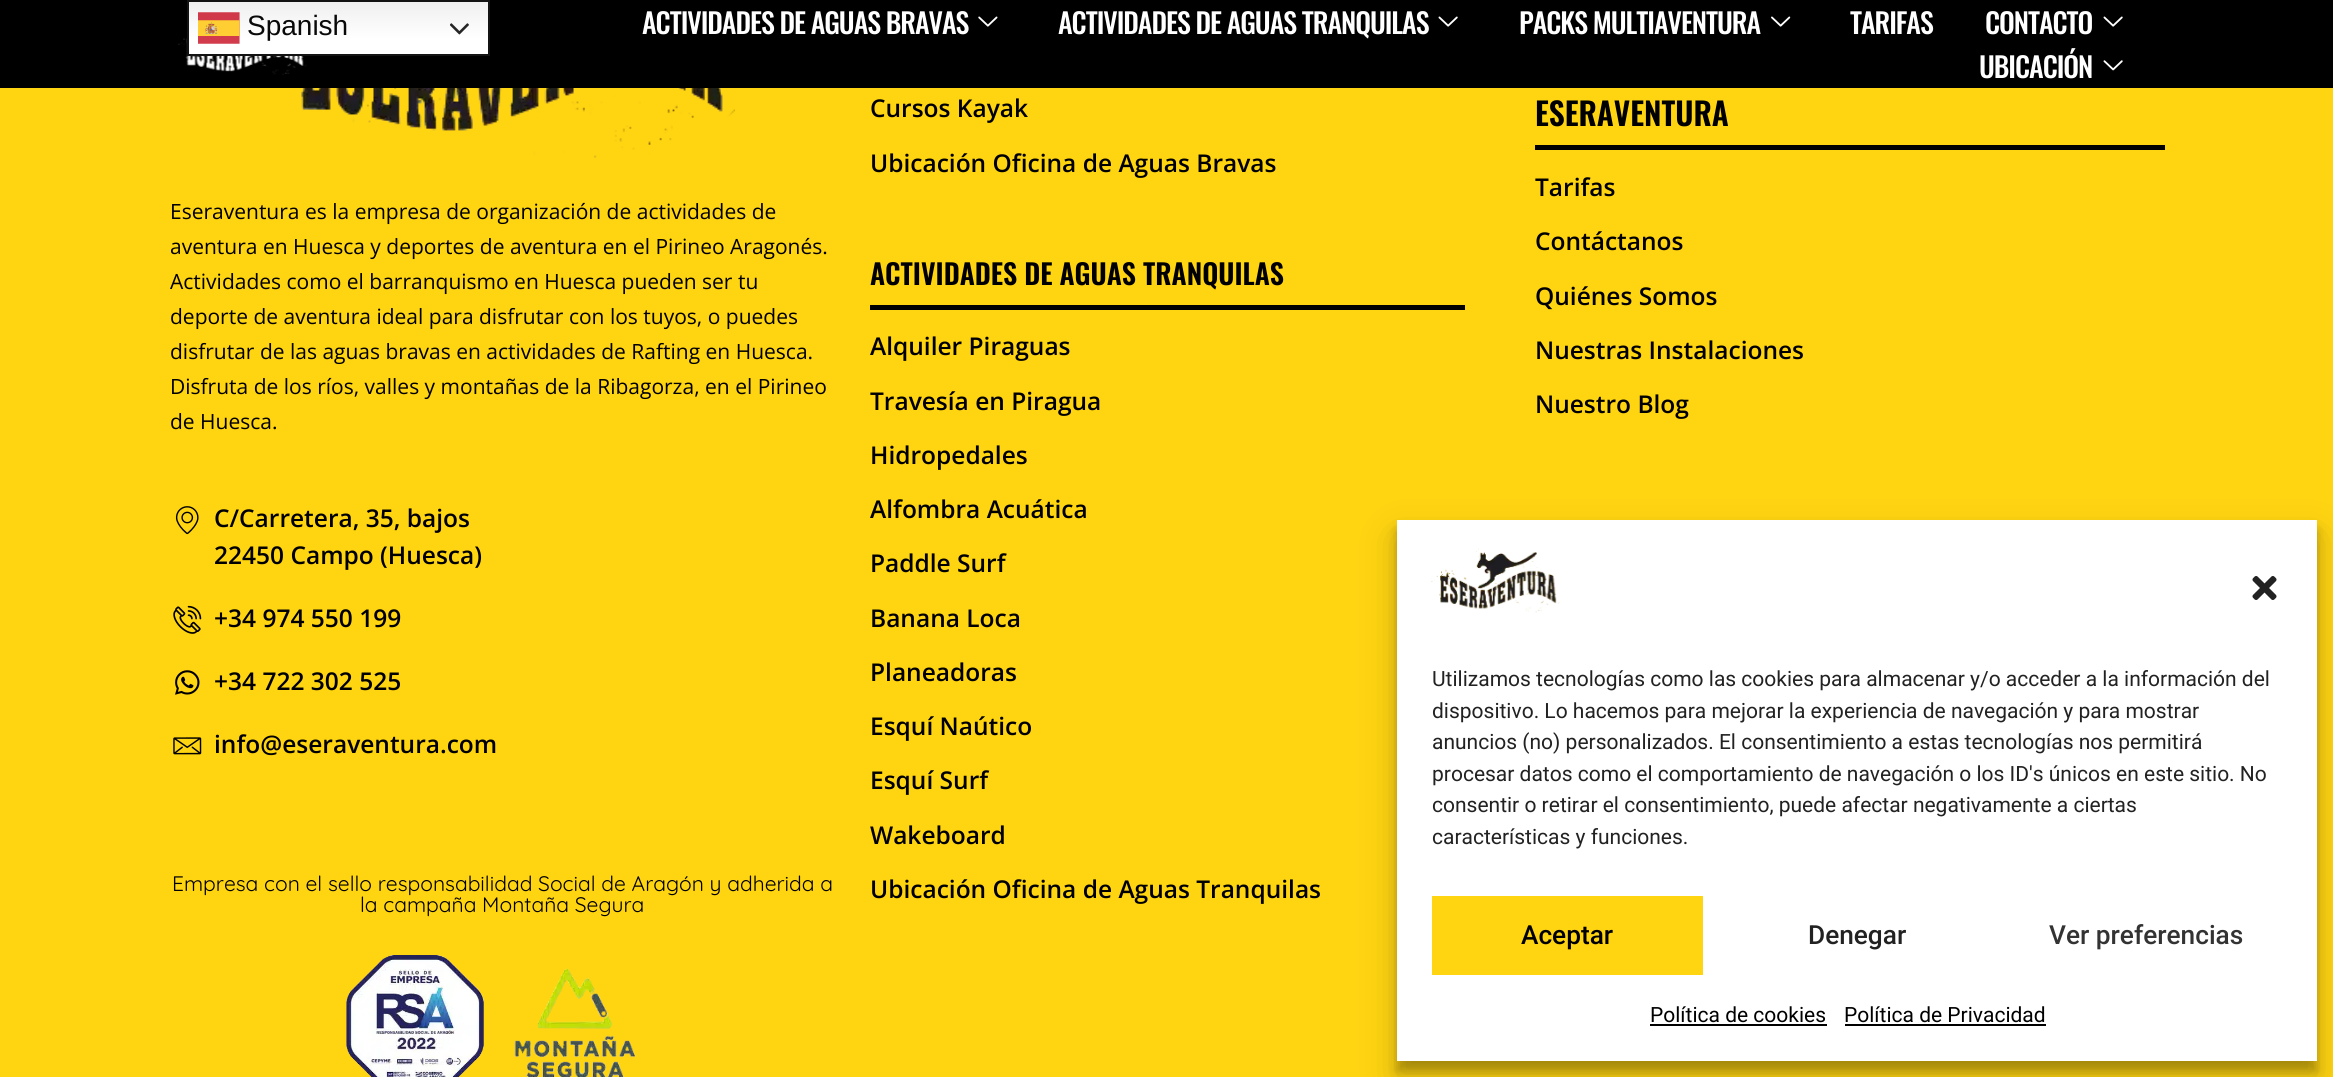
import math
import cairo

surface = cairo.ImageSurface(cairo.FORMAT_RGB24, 2333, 1077)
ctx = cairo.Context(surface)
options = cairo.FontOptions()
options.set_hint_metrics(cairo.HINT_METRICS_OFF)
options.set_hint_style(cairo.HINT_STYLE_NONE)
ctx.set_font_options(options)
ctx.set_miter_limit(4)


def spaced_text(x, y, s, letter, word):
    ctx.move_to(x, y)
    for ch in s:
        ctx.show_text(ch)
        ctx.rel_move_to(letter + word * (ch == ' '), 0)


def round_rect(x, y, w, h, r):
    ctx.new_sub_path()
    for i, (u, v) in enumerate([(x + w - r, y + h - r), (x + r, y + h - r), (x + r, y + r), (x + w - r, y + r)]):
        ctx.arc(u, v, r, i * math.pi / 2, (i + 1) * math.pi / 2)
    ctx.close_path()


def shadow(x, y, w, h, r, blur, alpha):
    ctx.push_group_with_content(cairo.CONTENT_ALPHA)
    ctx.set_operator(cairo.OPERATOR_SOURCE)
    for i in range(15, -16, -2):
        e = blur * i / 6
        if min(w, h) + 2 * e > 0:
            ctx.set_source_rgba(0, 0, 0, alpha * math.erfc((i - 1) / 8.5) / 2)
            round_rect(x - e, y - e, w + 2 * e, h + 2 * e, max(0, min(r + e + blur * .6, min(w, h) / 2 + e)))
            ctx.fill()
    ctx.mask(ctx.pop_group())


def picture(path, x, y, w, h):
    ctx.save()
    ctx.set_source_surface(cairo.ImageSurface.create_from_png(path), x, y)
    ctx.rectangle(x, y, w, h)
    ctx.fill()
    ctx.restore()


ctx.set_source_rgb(1, 0.831, 0.067)
ctx.paint()
ctx.set_source_rgb(0, 0, 0)
ctx.rectangle(0, 0, 2333, 88)
ctx.fill()
picture("img3.png", 178, 38, 129, 37)
gradient = cairo.LinearGradient(339, 0, 339, 56)
gradient.add_color_stop_rgba(0, 0.937, 0.937, 0.937, 1)
gradient.add_color_stop_rgba(0.7, 1, 1, 1, 1)
ctx.set_source(gradient)
ctx.rectangle(189, 2, 299, 52)
ctx.fill()
ctx.rectangle(188, 1, 301, 54)
ctx.set_source_rgb(0.078, 0.078, 0.078)
ctx.stroke()
picture("img1.png", 198, 12, 42, 32)
ctx.select_font_face("Liberation Sans")
ctx.set_font_size(28)
ctx.set_source_rgb(0.039, 0.039, 0.039)
ctx.move_to(247, 35)
ctx.show_text("Spanish")
picture("img2.png", 450, 23, 19, 12)
ctx.select_font_face("Oswald Medium")
ctx.set_source_rgb(1, 1, 1)
spaced_text(642, 34, "ACTIVIDADES DE AGUAS BRAVAS", -1.05, 0)
picture("img4.png", 978, 16, 20, 11)
spaced_text(1058, 34, "ACTIVIDADES DE AGUAS TRANQUILAS", -1.05, 0)
picture("img5.png", 1438, 16, 20, 11)
spaced_text(1519, 34, "PACKS MULTIAVENTURA", -1.05, 0)
picture("img6.png", 1771, 16, 20, 11)
spaced_text(1850, 34, "TARIFAS", -1.05, 0)
spaced_text(1985, 34, "CONTACTO", -1.05, 0)
picture("img5.png", 2103, 16, 20, 11)
spaced_text(1979, 78, "UBICACIÓN", -1.05, 0)
picture("img7.png", 2103, 60, 20, 11)
picture("img8.png", 301, 88, 434, 70)
ctx.select_font_face("Open Sans")
ctx.set_font_size(21)
ctx.set_source_rgb(0, 0, 0)
ctx.move_to(170, 219)
ctx.show_text("Eseraventura es la empresa de organización de actividades de")
ctx.move_to(170, 254)
ctx.show_text("aventura en Huesca y deportes de aventura en el Pirineo Aragonés.")
ctx.move_to(170, 289)
ctx.show_text("Actividades como el barranquismo en Huesca pueden ser tu")
ctx.move_to(170, 324)
ctx.show_text("deporte de aventura ideal para disfrutar con los tuyos, o puedes")
ctx.move_to(170, 359)
ctx.show_text("disfrutar de las aguas bravas en actividades de Rafting en Huesca.")
ctx.move_to(170, 394)
ctx.show_text("Disfruta de los ríos, valles y montañas de la Ribagorza, en el Pirineo")
ctx.move_to(170, 429)
ctx.show_text("de Huesca.")
picture("img9.png", 175, 506, 24, 29)
ctx.select_font_face("Open Sans SemiBold")
ctx.set_font_size(24.5)
ctx.move_to(214, 527)
ctx.show_text("C/Carretera, 35, bajos")
ctx.move_to(214, 564)
ctx.show_text("22450 Campo (Huesca)")
picture("img10.png", 173, 605, 29, 29)
ctx.move_to(214, 627)
ctx.show_text("+34 974 550 199")
picture("img11.png", 175, 670, 25, 25)
ctx.move_to(214, 690)
ctx.show_text("+34 722 302 525")
picture("img12.png", 173, 737, 29, 18)
ctx.move_to(214, 753)
ctx.show_text("info@eseraventura.com")
ctx.select_font_face("Quicksand")
ctx.set_font_size(21)
ctx.move_to(172, 891)
ctx.show_text("Empresa con el sello responsabilidad Social de Aragón y adherida a")
ctx.move_to(360, 912)
ctx.show_text("la campaña Montaña Segura")
picture("img13.png", 346, 955, 138, 122)
picture("img14.png", 514, 963, 122, 114)
ctx.select_font_face("Open Sans SemiBold")
ctx.set_font_size(24.5)
ctx.move_to(870, 117)
ctx.show_text("Cursos Kayak")
ctx.move_to(870, 172)
ctx.show_text("Ubicación Oficina de Aguas Bravas")
ctx.select_font_face("Oswald SemiBold")
ctx.set_font_size(28)
ctx.move_to(870, 285)
ctx.show_text("ACTIVIDADES DE AGUAS TRANQUILAS")
ctx.rectangle(870, 305, 595, 5)
ctx.fill()
ctx.select_font_face("Open Sans SemiBold")
ctx.set_font_size(24.5)
ctx.move_to(870, 355)
ctx.show_text("Alquiler Piraguas")
ctx.move_to(870, 410)
ctx.show_text("Travesía en Piragua")
ctx.move_to(870, 464)
ctx.show_text("Hidropedales")
ctx.move_to(870, 518)
ctx.show_text("Alfombra Acuática")
ctx.move_to(870, 572)
ctx.show_text("Paddle Surf")
ctx.move_to(870, 627)
ctx.show_text("Banana Loca")
ctx.move_to(870, 681)
ctx.show_text("Planeadoras")
ctx.move_to(870, 735)
ctx.show_text("Esquí Naútico")
ctx.move_to(870, 789)
ctx.show_text("Esquí Surf")
ctx.move_to(870, 844)
ctx.show_text("Wakeboard")
ctx.move_to(870, 898)
ctx.show_text("Ubicación Oficina de Aguas Tranquilas")
ctx.select_font_face("Oswald SemiBold")
ctx.set_font_size(31.5)
ctx.move_to(1535, 126)
ctx.show_text("ESERAVENTURA")
ctx.rectangle(1535, 145, 630, 5)
ctx.fill()
ctx.select_font_face("Open Sans SemiBold")
ctx.set_font_size(24.5)
ctx.move_to(1535, 196)
ctx.show_text("Tarifas")
ctx.move_to(1535, 250)
ctx.show_text("Contáctanos")
ctx.move_to(1535, 305)
ctx.show_text("Quiénes Somos")
ctx.move_to(1535, 359)
ctx.show_text("Nuestras Instalaciones")
ctx.move_to(1535, 413)
ctx.show_text("Nuestro Blog")
ctx.set_source_rgb(0, 0, 0)
shadow(1397, 530, 920, 541, 0, 5, 0.23)
shadow(1397, 537, 920, 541, 0, 17.5, 0.19)
ctx.set_source_rgb(1, 1, 1)
ctx.rectangle(1397, 520, 920, 541)
ctx.fill()
picture("img15.png", 1431, 548, 129, 65)
picture("img16.png", 2252, 576, 25, 24)
ctx.select_font_face("Roboto")
ctx.set_font_size(21)
ctx.set_source_rgb(0.133, 0.133, 0.133)
ctx.move_to(1432, 686)
ctx.show_text("Utilizamos tecnologías como las cookies para almacenar y/o acceder a la información del")
ctx.move_to(1432, 718)
ctx.show_text("dispositivo. Lo hacemos para mejorar la experiencia de navegación y para mostrar")
ctx.move_to(1432, 749)
ctx.show_text("anuncios (no) personalizados. El consentimiento a estas tecnologías nos permitirá")
ctx.move_to(1432, 781)
ctx.show_text("procesar datos como el comportamiento de navegación o los ID's únicos en este sitio. No")
ctx.move_to(1432, 812)
ctx.show_text("consentir o retirar el consentimiento, puede afectar negativamente a ciertas")
ctx.move_to(1432, 844)
ctx.show_text("características y funciones.")
ctx.set_source_rgb(1, 0.831, 0.067)
ctx.rectangle(1432, 896, 271, 79)
ctx.fill()
ctx.select_font_face("Roboto Medium")
ctx.set_font_size(26.25)
ctx.set_source_rgb(0, 0, 0)
ctx.move_to(1521, 944)
ctx.show_text("Aceptar")
ctx.set_source_rgb(0.133, 0.133, 0.133)
ctx.move_to(1808, 944)
ctx.show_text("Denegar")
ctx.set_source_rgb(0.2, 0.2, 0.2)
ctx.move_to(2049, 944)
ctx.show_text("Ver preferencias")
ctx.select_font_face("Roboto")
ctx.set_font_size(21)
ctx.set_source_rgb(0, 0, 0)
ctx.move_to(1650, 1022)
ctx.show_text("Política de cookies")
ctx.rectangle(1650, 1024, 177, 2)
ctx.fill()
ctx.move_to(1844, 1022)
ctx.show_text("Política de Privacidad")
ctx.rectangle(1845, 1024, 201, 2)
ctx.fill()
surface.write_to_png("page.png")
